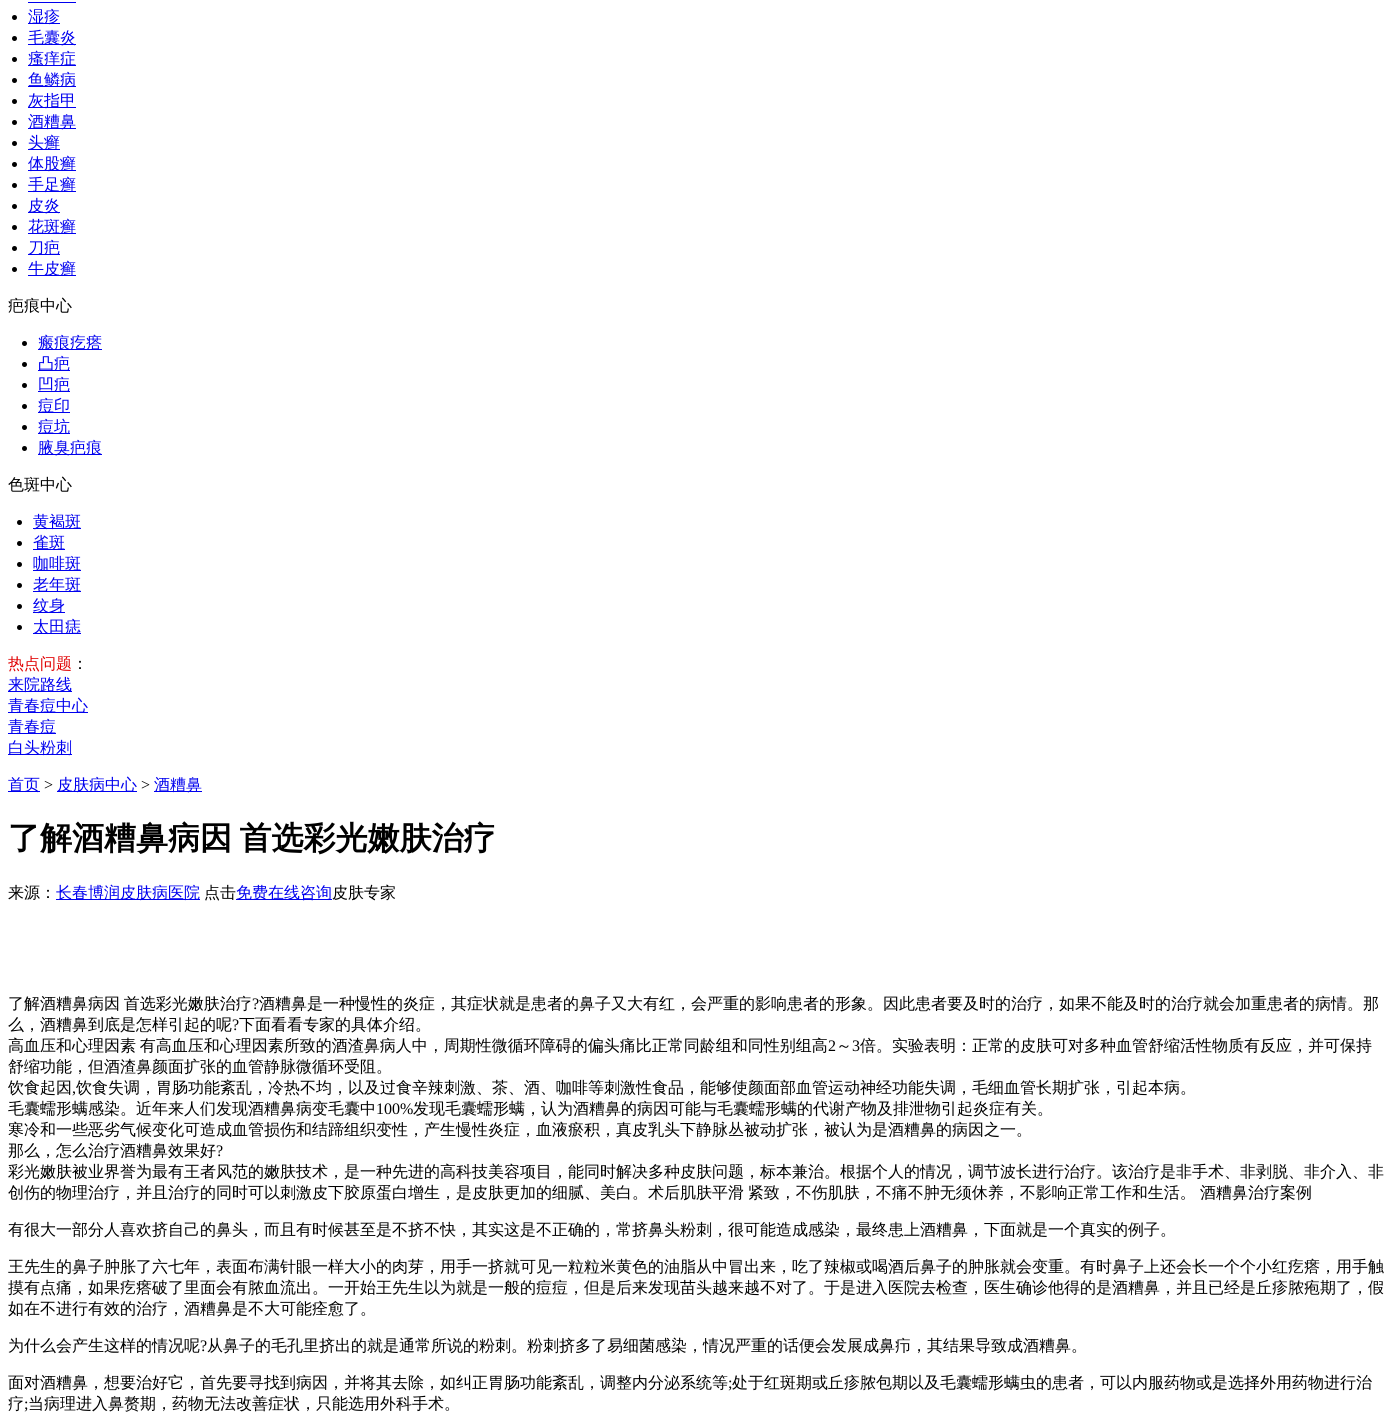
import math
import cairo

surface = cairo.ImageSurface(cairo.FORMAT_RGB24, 1395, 1423)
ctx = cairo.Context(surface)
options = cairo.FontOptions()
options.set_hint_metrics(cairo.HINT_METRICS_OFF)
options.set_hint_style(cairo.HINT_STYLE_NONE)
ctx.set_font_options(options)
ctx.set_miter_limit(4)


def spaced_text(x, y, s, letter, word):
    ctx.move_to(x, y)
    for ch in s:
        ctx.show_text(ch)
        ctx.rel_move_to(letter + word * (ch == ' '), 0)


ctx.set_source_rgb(1, 1, 1)
ctx.paint()
ctx.set_source_rgb(0, 0, 0.933)
ctx.rectangle(28, 2, 48, 1)
ctx.fill()
ctx.set_source_rgb(0, 0, 0)
ctx.arc(14.5, 17.5, 2.5, 0, 2 * math.pi)
ctx.fill()
ctx.set_source_rgb(0, 0, 0.933)
ctx.rectangle(28, 23, 32, 1)
ctx.fill()
ctx.select_font_face("WenQuanYi Zen Hei Medium")
ctx.set_font_size(16)
ctx.move_to(28, 22)
ctx.show_text("湿疹")
ctx.set_source_rgb(0, 0, 0)
ctx.new_path()
ctx.arc(14.5, 38.5, 2.5, 0, 2 * math.pi)
ctx.fill()
ctx.set_source_rgb(0, 0, 0.933)
ctx.rectangle(28, 44, 48, 1)
ctx.fill()
ctx.move_to(28, 43)
ctx.show_text("毛囊炎")
ctx.set_source_rgb(0, 0, 0)
ctx.new_path()
ctx.arc(14.5, 59.5, 2.5, 0, 2 * math.pi)
ctx.fill()
ctx.set_source_rgb(0, 0, 0.933)
ctx.rectangle(28, 65, 48, 1)
ctx.fill()
ctx.move_to(28, 64)
ctx.show_text("瘙痒症")
ctx.set_source_rgb(0, 0, 0)
ctx.new_path()
ctx.arc(14.5, 80.5, 2.5, 0, 2 * math.pi)
ctx.fill()
ctx.set_source_rgb(0, 0, 0.933)
ctx.rectangle(28, 86, 48, 1)
ctx.fill()
ctx.move_to(28, 85)
ctx.show_text("鱼鳞病")
ctx.set_source_rgb(0, 0, 0)
ctx.new_path()
ctx.arc(14.5, 101.5, 2.5, 0, 2 * math.pi)
ctx.fill()
ctx.set_source_rgb(0, 0, 0.933)
ctx.rectangle(28, 107, 48, 1)
ctx.fill()
ctx.move_to(28, 106)
ctx.show_text("灰指甲")
ctx.set_source_rgb(0, 0, 0)
ctx.new_path()
ctx.arc(14.5, 122.5, 2.5, 0, 2 * math.pi)
ctx.fill()
ctx.set_source_rgb(0, 0, 0.933)
ctx.rectangle(28, 128, 48, 1)
ctx.fill()
ctx.move_to(28, 127)
ctx.show_text("酒糟鼻")
ctx.set_source_rgb(0, 0, 0)
ctx.new_path()
ctx.arc(14.5, 143.5, 2.5, 0, 2 * math.pi)
ctx.fill()
ctx.set_source_rgb(0, 0, 0.933)
ctx.rectangle(28, 149, 32, 1)
ctx.fill()
ctx.move_to(28, 148)
ctx.show_text("头癣")
ctx.set_source_rgb(0, 0, 0)
ctx.new_path()
ctx.arc(14.5, 164.5, 2.5, 0, 2 * math.pi)
ctx.fill()
ctx.set_source_rgb(0, 0, 0.933)
ctx.rectangle(28, 170, 48, 1)
ctx.fill()
ctx.move_to(28, 169)
ctx.show_text("体股癣")
ctx.set_source_rgb(0, 0, 0)
ctx.new_path()
ctx.arc(14.5, 185.5, 2.5, 0, 2 * math.pi)
ctx.fill()
ctx.set_source_rgb(0, 0, 0.933)
ctx.rectangle(28, 191, 48, 1)
ctx.fill()
ctx.move_to(28, 190)
ctx.show_text("手足癣")
ctx.set_source_rgb(0, 0, 0)
ctx.new_path()
ctx.arc(14.5, 206.5, 2.5, 0, 2 * math.pi)
ctx.fill()
ctx.set_source_rgb(0, 0, 0.933)
ctx.rectangle(28, 212, 32, 1)
ctx.fill()
ctx.move_to(28, 211)
ctx.show_text("皮炎")
ctx.set_source_rgb(0, 0, 0)
ctx.new_path()
ctx.arc(14.5, 227.5, 2.5, 0, 2 * math.pi)
ctx.fill()
ctx.set_source_rgb(0, 0, 0.933)
ctx.rectangle(28, 233, 48, 1)
ctx.fill()
ctx.move_to(28, 232)
ctx.show_text("花斑癣")
ctx.set_source_rgb(0, 0, 0)
ctx.new_path()
ctx.arc(14.5, 248.5, 2.5, 0, 2 * math.pi)
ctx.fill()
ctx.set_source_rgb(0, 0, 0.933)
ctx.rectangle(28, 254, 32, 1)
ctx.fill()
ctx.move_to(28, 253)
ctx.show_text("刀疤")
ctx.set_source_rgb(0, 0, 0)
ctx.new_path()
ctx.arc(14.5, 269.5, 2.5, 0, 2 * math.pi)
ctx.fill()
ctx.set_source_rgb(0, 0, 0.933)
ctx.rectangle(28, 275, 48, 1)
ctx.fill()
ctx.move_to(28, 274)
ctx.show_text("牛皮癣")
ctx.set_source_rgb(0, 0, 0)
ctx.move_to(8, 311)
ctx.show_text("疤痕中心")
ctx.new_path()
ctx.arc(24.5, 343.5, 2.5, 0, 2 * math.pi)
ctx.fill()
ctx.set_source_rgb(0, 0, 0.933)
ctx.rectangle(38, 349, 64, 1)
ctx.fill()
ctx.move_to(38, 348)
ctx.show_text("瘢痕疙瘩")
ctx.set_source_rgb(0, 0, 0)
ctx.new_path()
ctx.arc(24.5, 364.5, 2.5, 0, 2 * math.pi)
ctx.fill()
ctx.set_source_rgb(0, 0, 0.933)
ctx.rectangle(38, 370, 32, 1)
ctx.fill()
ctx.move_to(38, 369)
ctx.show_text("凸疤")
ctx.set_source_rgb(0, 0, 0)
ctx.new_path()
ctx.arc(24.5, 385.5, 2.5, 0, 2 * math.pi)
ctx.fill()
ctx.set_source_rgb(0, 0, 0.933)
ctx.rectangle(38, 391, 32, 1)
ctx.fill()
ctx.move_to(38, 390)
ctx.show_text("凹疤")
ctx.set_source_rgb(0, 0, 0)
ctx.new_path()
ctx.arc(24.5, 406.5, 2.5, 0, 2 * math.pi)
ctx.fill()
ctx.set_source_rgb(0, 0, 0.933)
ctx.rectangle(38, 412, 32, 1)
ctx.fill()
ctx.move_to(38, 411)
ctx.show_text("痘印")
ctx.set_source_rgb(0, 0, 0)
ctx.new_path()
ctx.arc(24.5, 427.5, 2.5, 0, 2 * math.pi)
ctx.fill()
ctx.set_source_rgb(0, 0, 0.933)
ctx.rectangle(38, 433, 32, 1)
ctx.fill()
ctx.move_to(38, 432)
ctx.show_text("痘坑")
ctx.set_source_rgb(0, 0, 0)
ctx.new_path()
ctx.arc(24.5, 448.5, 2.5, 0, 2 * math.pi)
ctx.fill()
ctx.set_source_rgb(0, 0, 0.933)
ctx.rectangle(38, 454, 64, 1)
ctx.fill()
ctx.move_to(38, 453)
ctx.show_text("腋臭疤痕")
ctx.set_source_rgb(0, 0, 0)
ctx.move_to(8, 490)
ctx.show_text("色斑中心")
ctx.new_path()
ctx.arc(19.5, 522.5, 2.5, 0, 2 * math.pi)
ctx.fill()
ctx.set_source_rgb(0, 0, 0.933)
ctx.rectangle(33, 528, 48, 1)
ctx.fill()
ctx.move_to(33, 527)
ctx.show_text("黄褐斑")
ctx.set_source_rgb(0, 0, 0)
ctx.new_path()
ctx.arc(19.5, 543.5, 2.5, 0, 2 * math.pi)
ctx.fill()
ctx.set_source_rgb(0, 0, 0.933)
ctx.rectangle(33, 549, 32, 1)
ctx.fill()
ctx.move_to(33, 548)
ctx.show_text("雀斑")
ctx.set_source_rgb(0, 0, 0)
ctx.new_path()
ctx.arc(19.5, 564.5, 2.5, 0, 2 * math.pi)
ctx.fill()
ctx.set_source_rgb(0, 0, 0.933)
ctx.rectangle(33, 570, 48, 1)
ctx.fill()
ctx.move_to(33, 569)
ctx.show_text("咖啡斑")
ctx.set_source_rgb(0, 0, 0)
ctx.new_path()
ctx.arc(19.5, 585.5, 2.5, 0, 2 * math.pi)
ctx.fill()
ctx.set_source_rgb(0, 0, 0.933)
ctx.rectangle(33, 591, 48, 1)
ctx.fill()
ctx.move_to(33, 590)
ctx.show_text("老年斑")
ctx.set_source_rgb(0, 0, 0)
ctx.new_path()
ctx.arc(19.5, 606.5, 2.5, 0, 2 * math.pi)
ctx.fill()
ctx.set_source_rgb(0, 0, 0.933)
ctx.rectangle(33, 612, 32, 1)
ctx.fill()
ctx.move_to(33, 611)
ctx.show_text("纹身")
ctx.set_source_rgb(0, 0, 0)
ctx.new_path()
ctx.arc(19.5, 627.5, 2.5, 0, 2 * math.pi)
ctx.fill()
ctx.set_source_rgb(0, 0, 0.933)
ctx.rectangle(33, 633, 48, 1)
ctx.fill()
ctx.move_to(33, 632)
ctx.show_text("太田痣")
ctx.set_source_rgb(0.878, 0, 0.004)
ctx.move_to(8, 669)
ctx.show_text("热点问题")
ctx.set_source_rgb(0, 0, 0)
ctx.move_to(72, 669)
ctx.show_text("：")
ctx.set_source_rgb(0, 0, 0.933)
ctx.rectangle(8, 691, 64, 1)
ctx.fill()
ctx.move_to(8, 690)
ctx.show_text("来院路线")
ctx.rectangle(8, 712, 80, 1)
ctx.fill()
ctx.move_to(8, 711)
ctx.show_text("青春痘中心")
ctx.rectangle(8, 733, 48, 1)
ctx.fill()
ctx.move_to(8, 732)
ctx.show_text("青春痘")
ctx.rectangle(8, 754, 64, 1)
ctx.fill()
ctx.move_to(8, 753)
ctx.show_text("白头粉刺")
ctx.rectangle(8, 791, 32, 1)
ctx.fill()
ctx.move_to(8, 790)
ctx.show_text("首页")
ctx.select_font_face("Liberation Serif")
ctx.set_source_rgb(0, 0, 0)
ctx.move_to(44, 790)
ctx.show_text(">")
ctx.set_source_rgb(0, 0, 0.933)
ctx.rectangle(57, 791, 80, 1)
ctx.fill()
ctx.select_font_face("WenQuanYi Zen Hei Medium")
ctx.move_to(57, 790)
ctx.show_text("皮肤病中心")
ctx.select_font_face("Liberation Serif")
ctx.set_source_rgb(0, 0, 0)
ctx.move_to(141, 790)
ctx.show_text(">")
ctx.set_source_rgb(0, 0, 0.933)
ctx.rectangle(154, 791, 48, 1)
ctx.fill()
ctx.select_font_face("WenQuanYi Zen Hei Medium")
ctx.move_to(154, 790)
ctx.show_text("酒糟鼻")
ctx.select_font_face("WenQuanYi Zen Hei", cairo.FONT_SLANT_NORMAL, cairo.FONT_WEIGHT_BOLD)
ctx.set_font_size(32)
ctx.set_source_rgb(0, 0, 0)
spaced_text(8, 849, "了解酒糟鼻病因 首选彩光嫩肤治疗", 0, -2)
ctx.select_font_face("WenQuanYi Zen Hei Medium")
ctx.set_font_size(16)
ctx.move_to(8, 898)
ctx.show_text("来源：")
ctx.set_source_rgb(0, 0, 0.933)
ctx.rectangle(56, 899, 144, 1)
ctx.fill()
ctx.move_to(56, 898)
ctx.show_text("长春博润皮肤病医院")
ctx.set_source_rgb(0, 0, 0)
ctx.move_to(204, 898)
ctx.show_text("点击")
ctx.set_source_rgb(0, 0, 0.933)
ctx.rectangle(236, 899, 96, 1)
ctx.fill()
ctx.move_to(236, 898)
ctx.show_text("免费在线咨询")
ctx.set_source_rgb(0, 0, 0)
ctx.move_to(332, 898)
ctx.show_text("皮肤专家")
spaced_text(8, 1009, "了解酒糟鼻病因 首选彩光嫩肤治疗", 0, -1)
ctx.select_font_face("Liberation Serif")
ctx.move_to(252, 1009)
ctx.show_text("?")
ctx.select_font_face("WenQuanYi Zen Hei Medium")
ctx.move_to(259, 1009)
ctx.show_text("酒糟鼻是一种慢性的炎症，其症状就是患者的鼻子又大有红，会严重的影响患者的形象。因此患者要及时的治疗，如果不能及时的治疗就会加重患者的病情。那")
ctx.move_to(8, 1030)
ctx.show_text("么，酒糟鼻到底是怎样引起的呢")
ctx.select_font_face("Liberation Serif")
ctx.move_to(232, 1030)
ctx.show_text("?")
ctx.select_font_face("WenQuanYi Zen Hei Medium")
ctx.move_to(239, 1030)
ctx.show_text("下面看看专家的具体介绍。")
spaced_text(8, 1051, "高血压和心理因素 有高血压和心理因素所致的酒渣鼻病人中，周期性微循环障碍的偏头痛比正常同龄组和同性别组高", 0, -1)
ctx.select_font_face("Liberation Serif")
ctx.move_to(828, 1051)
ctx.show_text("2")
ctx.select_font_face("WenQuanYi Zen Hei Medium")
ctx.move_to(836, 1051)
ctx.show_text("～")
ctx.select_font_face("Liberation Serif")
ctx.move_to(852, 1051)
ctx.show_text("3")
ctx.select_font_face("WenQuanYi Zen Hei Medium")
ctx.move_to(860, 1051)
ctx.show_text("倍。实验表明：正常的皮肤可对多种血管舒缩活性物质有反应，并可保持")
ctx.move_to(8, 1072)
ctx.show_text("舒缩功能，但酒渣鼻颜面扩张的血管静脉微循环受阻。")
ctx.move_to(8, 1093)
ctx.show_text("饮食起因")
ctx.select_font_face("Liberation Serif")
ctx.move_to(72, 1093)
ctx.show_text(",")
ctx.select_font_face("WenQuanYi Zen Hei Medium")
ctx.move_to(76, 1093)
ctx.show_text("饮食失调，胃肠功能紊乱，冷热不均，以及过食辛辣刺激、茶、酒、咖啡等刺激性食品，能够使颜面部血管运动神经功能失调，毛细血管长期扩张，引起本病。")
ctx.move_to(8, 1114)
ctx.show_text("毛囊蠕形螨感染。近年来人们发现酒糟鼻病变毛囊中")
ctx.select_font_face("Liberation Serif")
ctx.move_to(376, 1114)
ctx.show_text("100%")
ctx.select_font_face("WenQuanYi Zen Hei Medium")
ctx.move_to(413, 1114)
ctx.show_text("发现毛囊蠕形螨，认为酒糟鼻的病因可能与毛囊蠕形螨的代谢产物及排泄物引起炎症有关。")
ctx.move_to(8, 1135)
ctx.show_text("寒冷和一些恶劣气候变化可造成血管损伤和结蹄组织变性，产生慢性炎症，血液瘀积，真皮乳头下静脉丛被动扩张，被认为是酒糟鼻的病因之一。")
ctx.move_to(8, 1156)
ctx.show_text("那么，怎么治疗酒糟鼻效果好")
ctx.select_font_face("Liberation Serif")
ctx.move_to(216, 1156)
ctx.show_text("?")
ctx.select_font_face("WenQuanYi Zen Hei Medium")
ctx.move_to(8, 1177)
ctx.show_text("彩光嫩肤被业界誉为最有王者风范的嫩肤技术，是一种先进的高科技美容项目，能同时解决多种皮肤问题，标本兼治。根据个人的情况，调节波长进行治疗。该治疗是非手术、非剥脱、非介入、非")
spaced_text(8, 1198, "创伤的物理治疗，并且治疗的同时可以刺激皮下胶原蛋白增生，是皮肤更加的细腻、美白。术后肌肤平滑 紧致，不伤肌肤，不痛不肿无须休养，不影响正常工作和生活。", 0, -1)
ctx.move_to(1200, 1198)
ctx.show_text("酒糟鼻治疗案例")
ctx.move_to(8, 1235)
ctx.show_text("有很大一部分人喜欢挤自己的鼻头，而且有时候甚至是不挤不快，其实这是不正确的，常挤鼻头粉刺，很可能造成感染，最终患上酒糟鼻，下面就是一个真实的例子。")
ctx.move_to(8, 1272)
ctx.show_text("王先生的鼻子肿胀了六七年，表面布满针眼一样大小的肉芽，用手一挤就可见一粒粒米黄色的油脂从中冒出来，吃了辣椒或喝酒后鼻子的肿胀就会变重。有时鼻子上还会长一个个小红疙瘩，用手触")
ctx.move_to(8, 1293)
ctx.show_text("摸有点痛，如果疙瘩破了里面会有脓血流出。一开始王先生以为就是一般的痘痘，但是后来发现苗头越来越不对了。于是进入医院去检查，医生确诊他得的是酒糟鼻，并且已经是丘疹脓疱期了，假")
ctx.move_to(8, 1314)
ctx.show_text("如在不进行有效的治疗，酒糟鼻是不大可能痊愈了。")
ctx.move_to(8, 1351)
ctx.show_text("为什么会产生这样的情况呢")
ctx.select_font_face("Liberation Serif")
ctx.move_to(200, 1351)
ctx.show_text("?")
ctx.select_font_face("WenQuanYi Zen Hei Medium")
ctx.move_to(207, 1351)
ctx.show_text("从鼻子的毛孔里挤出的就是通常所说的粉刺。粉刺挤多了易细菌感染，情况严重的话便会发展成鼻疖，其结果导致成酒糟鼻。")
ctx.move_to(8, 1388)
ctx.show_text("面对酒糟鼻，想要治好它，首先要寻找到病因，并将其去除，如纠正胃肠功能紊乱，调整内分泌系统等")
ctx.select_font_face("Liberation Serif")
ctx.move_to(728, 1388)
ctx.show_text(";")
ctx.select_font_face("WenQuanYi Zen Hei Medium")
ctx.move_to(732, 1388)
ctx.show_text("处于红斑期或丘疹脓包期以及毛囊蠕形螨虫的患者，可以内服药物或是选择外用药物进行治")
ctx.move_to(8, 1409)
ctx.show_text("疗")
ctx.select_font_face("Liberation Serif")
ctx.move_to(24, 1409)
ctx.show_text(";")
ctx.select_font_face("WenQuanYi Zen Hei Medium")
ctx.move_to(28, 1409)
ctx.show_text("当病理进入鼻赘期，药物无法改善症状，只能选用外科手术。")
surface.write_to_png("page.png")
